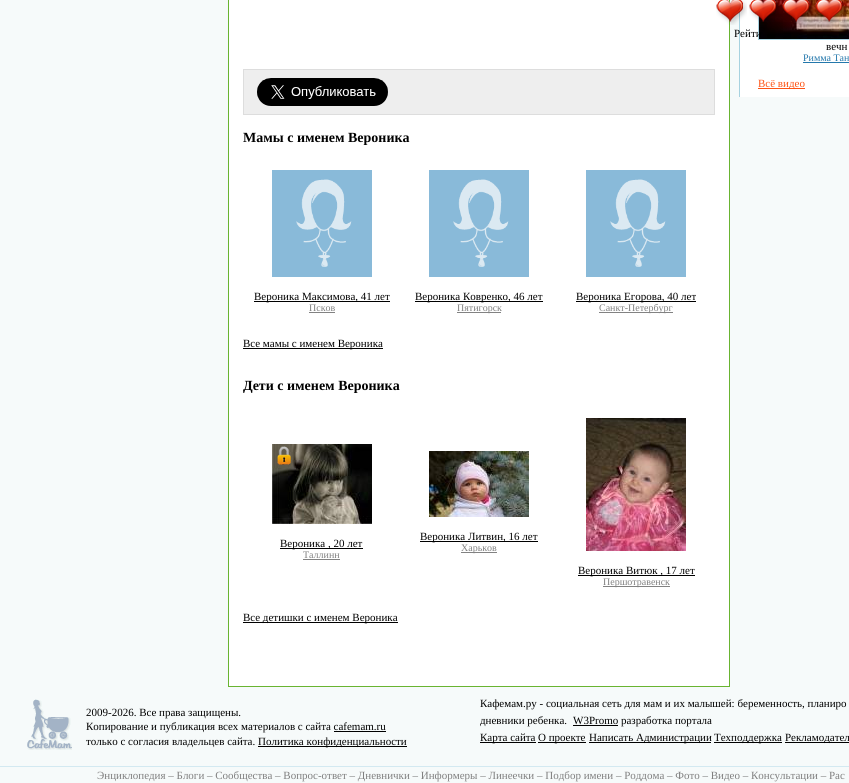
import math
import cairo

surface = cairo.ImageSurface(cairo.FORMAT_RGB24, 849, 783)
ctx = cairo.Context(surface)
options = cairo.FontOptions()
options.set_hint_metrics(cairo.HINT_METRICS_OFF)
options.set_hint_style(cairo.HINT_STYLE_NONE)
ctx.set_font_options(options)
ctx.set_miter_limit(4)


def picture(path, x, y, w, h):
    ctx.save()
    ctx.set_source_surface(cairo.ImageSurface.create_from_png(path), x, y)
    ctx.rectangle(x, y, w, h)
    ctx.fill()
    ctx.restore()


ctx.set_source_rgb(0.961, 0.98, 0.98)
ctx.paint()
ctx.set_source_rgb(1, 1, 1)
ctx.rectangle(229, 0, 500, 686)
ctx.fill()
ctx.set_source_rgb(0.412, 0.706, 0.192)
ctx.rectangle(729, 0, 1, 687)
ctx.fill()
ctx.rectangle(228, 686, 502, 1)
ctx.fill()
ctx.rectangle(228, 0, 1, 687)
ctx.fill()
ctx.set_source_rgb(1, 1, 1)
ctx.rectangle(740, 0, 109, 97)
ctx.fill()
ctx.set_source_rgb(0.655, 0.824, 0.878)
ctx.rectangle(739, 11, 1, 86)
ctx.fill()
picture("img1.png", 716, 0, 31, 25)
picture("img12.png", 759, 0, 90, 39)
ctx.rectangle(758.5, -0.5, 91, 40)
ctx.set_line_width(1)
ctx.stroke()
picture("img2.png", 749, 0, 30, 22)
picture("img3.png", 782, 0, 31, 25)
picture("img4.png", 815, 0, 31, 25)
picture("img5.png", 848, 3, 1, 7)
ctx.select_font_face("Liberation Serif")
ctx.set_font_size(11)
ctx.set_source_rgb(0, 0, 0)
ctx.move_to(734, 37)
ctx.show_text("Рейти")
ctx.set_source_rgb(0.933, 0.933, 0.933)
ctx.rectangle(243.5, 69.5, 471, 45)
ctx.fill_preserve()
ctx.set_source_rgb(0.867, 0.867, 0.867)
ctx.stroke()
picture("img6.png", 257, 78, 131, 28)
ctx.select_font_face("Liberation Serif", cairo.FONT_SLANT_NORMAL, cairo.FONT_WEIGHT_BOLD)
ctx.set_font_size(14)
ctx.set_source_rgb(0, 0, 0)
ctx.move_to(243, 142)
ctx.show_text("Мамы с именем Вероника")
picture("img7.png", 272, 170, 100, 107)
ctx.rectangle(254, 301, 136, 1)
ctx.fill()
ctx.select_font_face("Liberation Serif")
ctx.set_font_size(11)
ctx.move_to(254, 300)
ctx.show_text("Вероника Максимова, 41 лет")
ctx.set_font_size(10)
ctx.set_source_rgb(0.502, 0.502, 0.502)
ctx.move_to(309, 311)
ctx.show_text("Псков")
ctx.set_source_rgb(0.51, 0.51, 0.51)
ctx.rectangle(309, 312, 26, 1)
ctx.fill()
picture("img7.png", 429, 170, 100, 107)
ctx.set_source_rgb(0, 0, 0)
ctx.rectangle(415, 301, 128, 1)
ctx.fill()
ctx.set_font_size(11)
ctx.move_to(415, 300)
ctx.show_text("Вероника Ковренко, 46 лет")
ctx.set_source_rgb(0.51, 0.51, 0.51)
ctx.rectangle(457, 312, 44, 1)
ctx.fill()
ctx.set_font_size(10)
ctx.set_source_rgb(0.502, 0.502, 0.502)
ctx.move_to(457, 311)
ctx.show_text("Пятигорск")
picture("img7.png", 586, 170, 100, 107)
ctx.set_source_rgb(0, 0, 0)
ctx.rectangle(576, 301, 120, 1)
ctx.fill()
ctx.set_font_size(11)
ctx.move_to(576, 300)
ctx.show_text("Вероника Егорова, 40 лет")
ctx.set_source_rgb(0.51, 0.51, 0.51)
ctx.rectangle(599, 312, 74, 1)
ctx.fill()
ctx.set_font_size(10)
ctx.set_source_rgb(0.502, 0.502, 0.502)
ctx.move_to(599, 311)
ctx.show_text("Санкт-Петербург")
ctx.set_source_rgb(0, 0, 0)
ctx.rectangle(243, 348, 140, 1)
ctx.fill()
ctx.set_font_size(11)
ctx.move_to(243, 347)
ctx.show_text("Все мамы с именем Вероника")
ctx.select_font_face("Liberation Serif", cairo.FONT_SLANT_NORMAL, cairo.FONT_WEIGHT_BOLD)
ctx.set_font_size(14)
ctx.move_to(243, 390)
ctx.show_text("Дети с именем Вероника")
picture("img8.png", 272, 444, 100, 80)
picture("img9.png", 277, 446, 15, 19)
ctx.rectangle(280, 548, 83, 1)
ctx.fill()
ctx.select_font_face("Liberation Serif")
ctx.set_font_size(11)
ctx.move_to(280, 547)
ctx.show_text("Вероника , 20 лет")
ctx.set_font_size(10)
ctx.set_source_rgb(0.502, 0.502, 0.502)
ctx.move_to(303, 558)
ctx.show_text("Таллинн")
ctx.set_source_rgb(0.51, 0.51, 0.51)
ctx.rectangle(303, 559, 37, 1)
ctx.fill()
picture("img10.png", 429, 451, 100, 66)
ctx.set_source_rgb(0, 0, 0)
ctx.rectangle(420, 541, 118, 1)
ctx.fill()
ctx.set_font_size(11)
ctx.move_to(420, 540)
ctx.show_text("Вероника Литвин, 16 лет")
ctx.set_source_rgb(0.51, 0.51, 0.51)
ctx.rectangle(461, 552, 36, 1)
ctx.fill()
ctx.set_font_size(10)
ctx.set_source_rgb(0.502, 0.502, 0.502)
ctx.move_to(461, 551)
ctx.show_text("Харьков")
picture("img11.png", 586, 418, 100, 133)
ctx.set_source_rgb(0, 0, 0)
ctx.rectangle(578, 575, 117, 1)
ctx.fill()
ctx.set_font_size(11)
ctx.move_to(578, 574)
ctx.show_text("Вероника Витюк , 17 лет")
ctx.set_source_rgb(0.51, 0.51, 0.51)
ctx.rectangle(603, 586, 67, 1)
ctx.fill()
ctx.set_font_size(10)
ctx.set_source_rgb(0.502, 0.502, 0.502)
ctx.move_to(603, 585)
ctx.show_text("Першотравенск")
ctx.set_source_rgb(0, 0, 0)
ctx.rectangle(243, 622, 155, 1)
ctx.fill()
ctx.set_font_size(11)
ctx.move_to(243, 621)
ctx.show_text("Все детишки с именем Вероника")
ctx.move_to(826, 50)
ctx.show_text("вечн")
ctx.set_font_size(10)
ctx.set_source_rgb(0.141, 0.471, 0.675)
ctx.move_to(803, 61)
ctx.show_text("Римма Тан")
ctx.rectangle(803, 62, 46, 1)
ctx.fill()
ctx.set_source_rgb(0.996, 0.325, 0.082)
ctx.rectangle(758, 88, 47, 1)
ctx.fill()
ctx.set_font_size(11)
ctx.move_to(758, 87)
ctx.show_text("Всё видео")
picture("img13.png", 27, 699, 45, 51)
ctx.set_source_rgb(0, 0, 0)
ctx.move_to(86, 716)
ctx.show_text("2009-2026. Все права защищены.")
ctx.move_to(86, 730)
ctx.show_text("Копирование и публикация всех материалов с сайта cafemam.ru")
ctx.rectangle(334, 731, 52, 1)
ctx.fill()
ctx.move_to(86, 745)
ctx.show_text("только с согласия владельцев сайта.")
ctx.rectangle(258, 746, 149, 1)
ctx.fill()
ctx.move_to(258, 745)
ctx.show_text("Политика конфиденциальности")
ctx.move_to(480, 707)
ctx.show_text("Кафемам.ру - социальная сеть для мам и их малышей: беременность, планиро")
ctx.move_to(480, 724)
ctx.show_text("дневники ребенка.")
ctx.rectangle(573, 725, 45, 1)
ctx.fill()
ctx.move_to(573, 724)
ctx.show_text("W3Promo разработка портала")
ctx.rectangle(480, 742, 56, 1)
ctx.fill()
ctx.move_to(480, 741)
ctx.show_text("Карта сайта")
ctx.rectangle(538, 742, 48, 1)
ctx.fill()
ctx.move_to(538, 741)
ctx.show_text("О проекте")
ctx.rectangle(589, 742, 122, 1)
ctx.fill()
ctx.move_to(589, 741)
ctx.show_text("Написать Администрации")
ctx.rectangle(714, 742, 68, 1)
ctx.fill()
ctx.move_to(714, 741)
ctx.show_text("Техподдержка")
ctx.rectangle(785, 742, 64, 1)
ctx.fill()
ctx.move_to(785, 741)
ctx.show_text("Рекламодател")
ctx.set_source_rgb(0.827, 0.914, 0.945)
ctx.rectangle(0, 766, 849, 1)
ctx.fill()
ctx.set_source_rgb(0.502, 0.502, 0.502)
ctx.move_to(97, 779)
ctx.show_text("Энциклопедия – Блоги – Сообщества – Вопрос-ответ – Дневнички – Информеры – Линеечки – Подбор имени – Роддома – Фото – Видео – Консультации – Рас")
surface.write_to_png("page.png")
